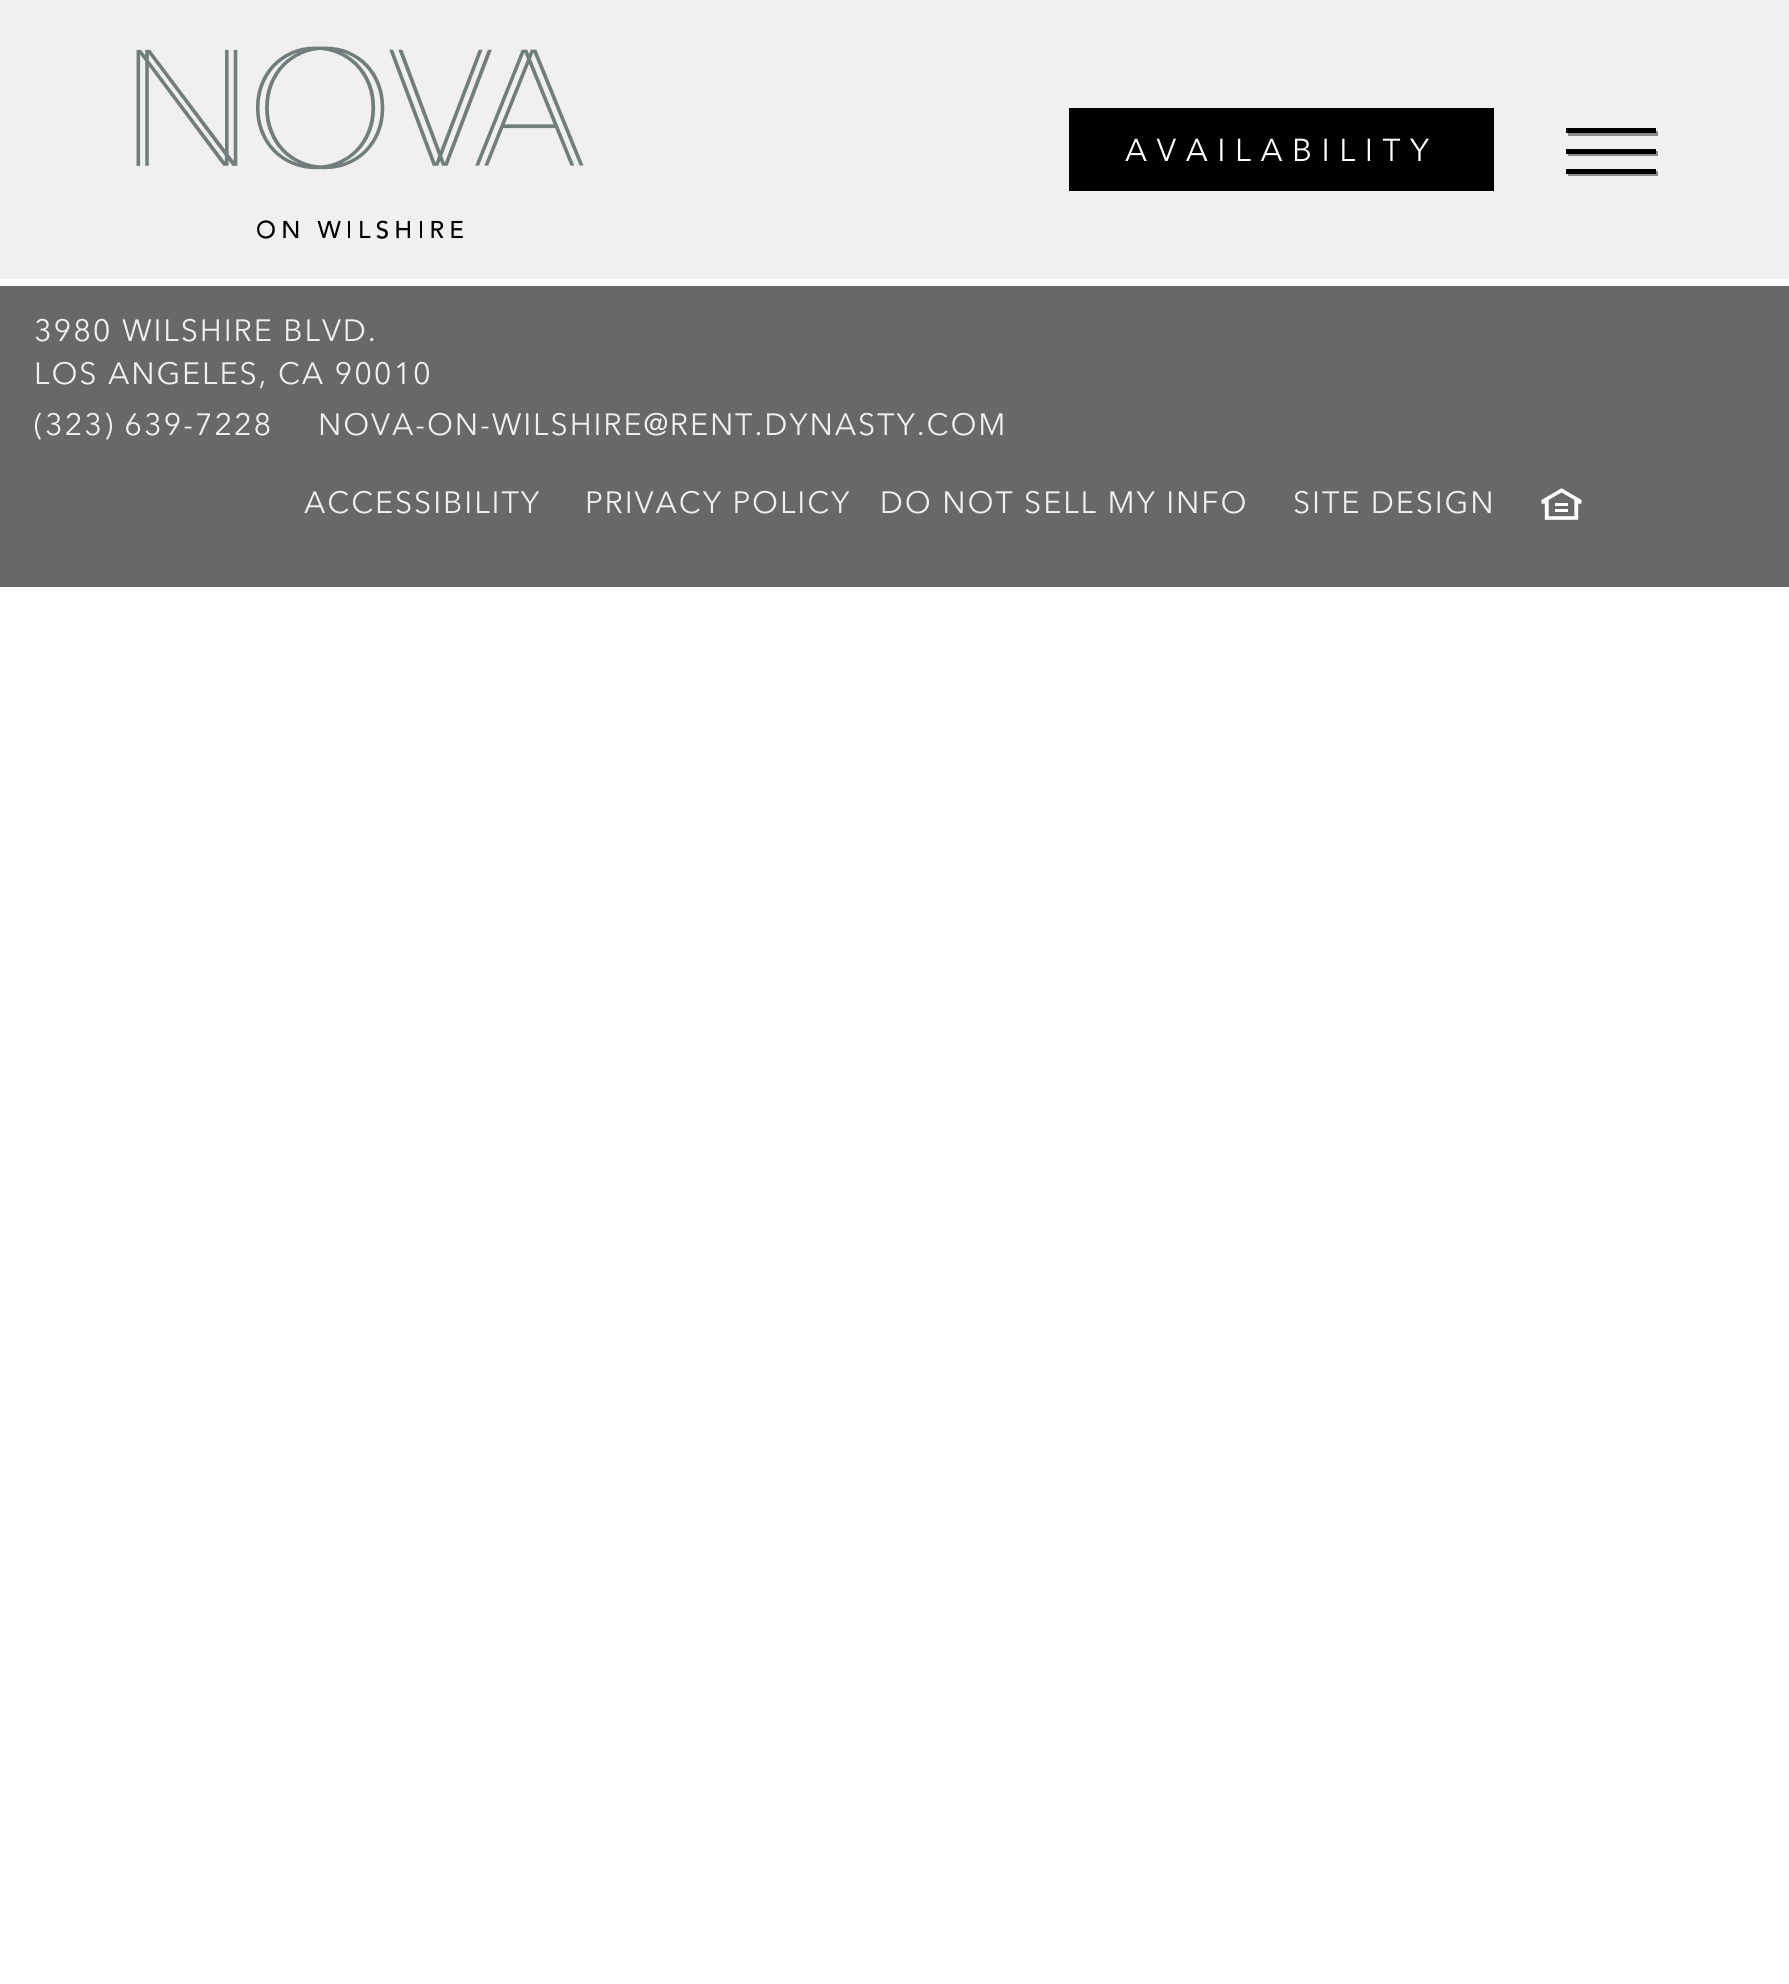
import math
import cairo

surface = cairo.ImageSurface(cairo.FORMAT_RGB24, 1789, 1984)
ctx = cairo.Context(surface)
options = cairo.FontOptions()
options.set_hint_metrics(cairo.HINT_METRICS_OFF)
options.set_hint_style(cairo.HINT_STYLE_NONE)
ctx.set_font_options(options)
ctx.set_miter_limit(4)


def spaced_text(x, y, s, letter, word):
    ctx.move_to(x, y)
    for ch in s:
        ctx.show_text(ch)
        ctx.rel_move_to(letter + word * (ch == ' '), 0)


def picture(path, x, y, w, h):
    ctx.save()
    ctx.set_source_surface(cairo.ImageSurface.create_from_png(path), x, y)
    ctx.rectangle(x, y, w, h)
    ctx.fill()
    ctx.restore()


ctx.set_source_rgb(1, 1, 1)
ctx.paint()
ctx.set_source_rgb(0.945, 0.937, 0.937)
ctx.rectangle(0, 0, 1789, 279)
ctx.fill()
picture("img1.png", 136, 46, 448, 193)
ctx.set_source_rgb(0, 0, 0)
ctx.rectangle(1069, 108, 425, 83)
ctx.fill()
ctx.select_font_face("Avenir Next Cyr")
ctx.set_font_size(31.5)
ctx.set_source_rgb(1, 1, 1)
spaced_text(1125, 161, "AVAILABILITY", 9.5, 0)
ctx.set_source_rgb(0.541, 0.541, 0.541)
ctx.new_path()
ctx.move_to(1568, 133)
ctx.line_to(1568, 136)
ctx.line_to(1658, 136)
ctx.line_to(1658, 131)
ctx.line_to(1656, 131)
ctx.line_to(1656, 133)
ctx.close_path()
ctx.fill()
ctx.set_source_rgb(0, 0, 0)
ctx.rectangle(1566, 128, 90, 5)
ctx.fill()
ctx.set_source_rgb(0.541, 0.541, 0.541)
ctx.new_path()
ctx.move_to(1568, 153)
ctx.line_to(1568, 156)
ctx.line_to(1658, 156)
ctx.line_to(1658, 151)
ctx.line_to(1656, 151)
ctx.line_to(1656, 153)
ctx.close_path()
ctx.fill()
ctx.set_source_rgb(0, 0, 0)
ctx.rectangle(1566, 149, 90, 5)
ctx.fill()
ctx.set_source_rgb(0.541, 0.541, 0.541)
ctx.new_path()
ctx.move_to(1568, 173)
ctx.line_to(1568, 176)
ctx.line_to(1658, 176)
ctx.line_to(1658, 171)
ctx.line_to(1656, 171)
ctx.line_to(1656, 173)
ctx.close_path()
ctx.fill()
ctx.set_source_rgb(0, 0, 0)
ctx.rectangle(1566, 169, 90, 5)
ctx.fill()
ctx.set_source_rgb(0.404, 0.408, 0.408)
ctx.rectangle(0, 286, 1789, 301)
ctx.fill()
ctx.set_font_size(30.6)
ctx.set_source_rgb(0.945, 0.937, 0.937)
spaced_text(34, 341, "3980 WILSHIRE BLVD.", 1.85, 0)
spaced_text(34, 384, "LOS ANGELES, CA 90010", 1.85, 0)
spaced_text(34, 435, "(323) 639-7228", 1.85, 0)
spaced_text(318, 435, "NOVA-ON-WILSHIRE@RENT.DYNASTY.COM", 1.85, 0)
spaced_text(304, 513, "ACCESSIBILITY", 1.85, 0)
spaced_text(585, 513, "PRIVACY POLICY   DO NOT SELL MY INFO", 1.85, 0)
spaced_text(1293, 513, "SITE DESIGN", 1.85, 0)
picture("img2.png", 1541, 488, 41, 32)
surface.write_to_png("page.png")
